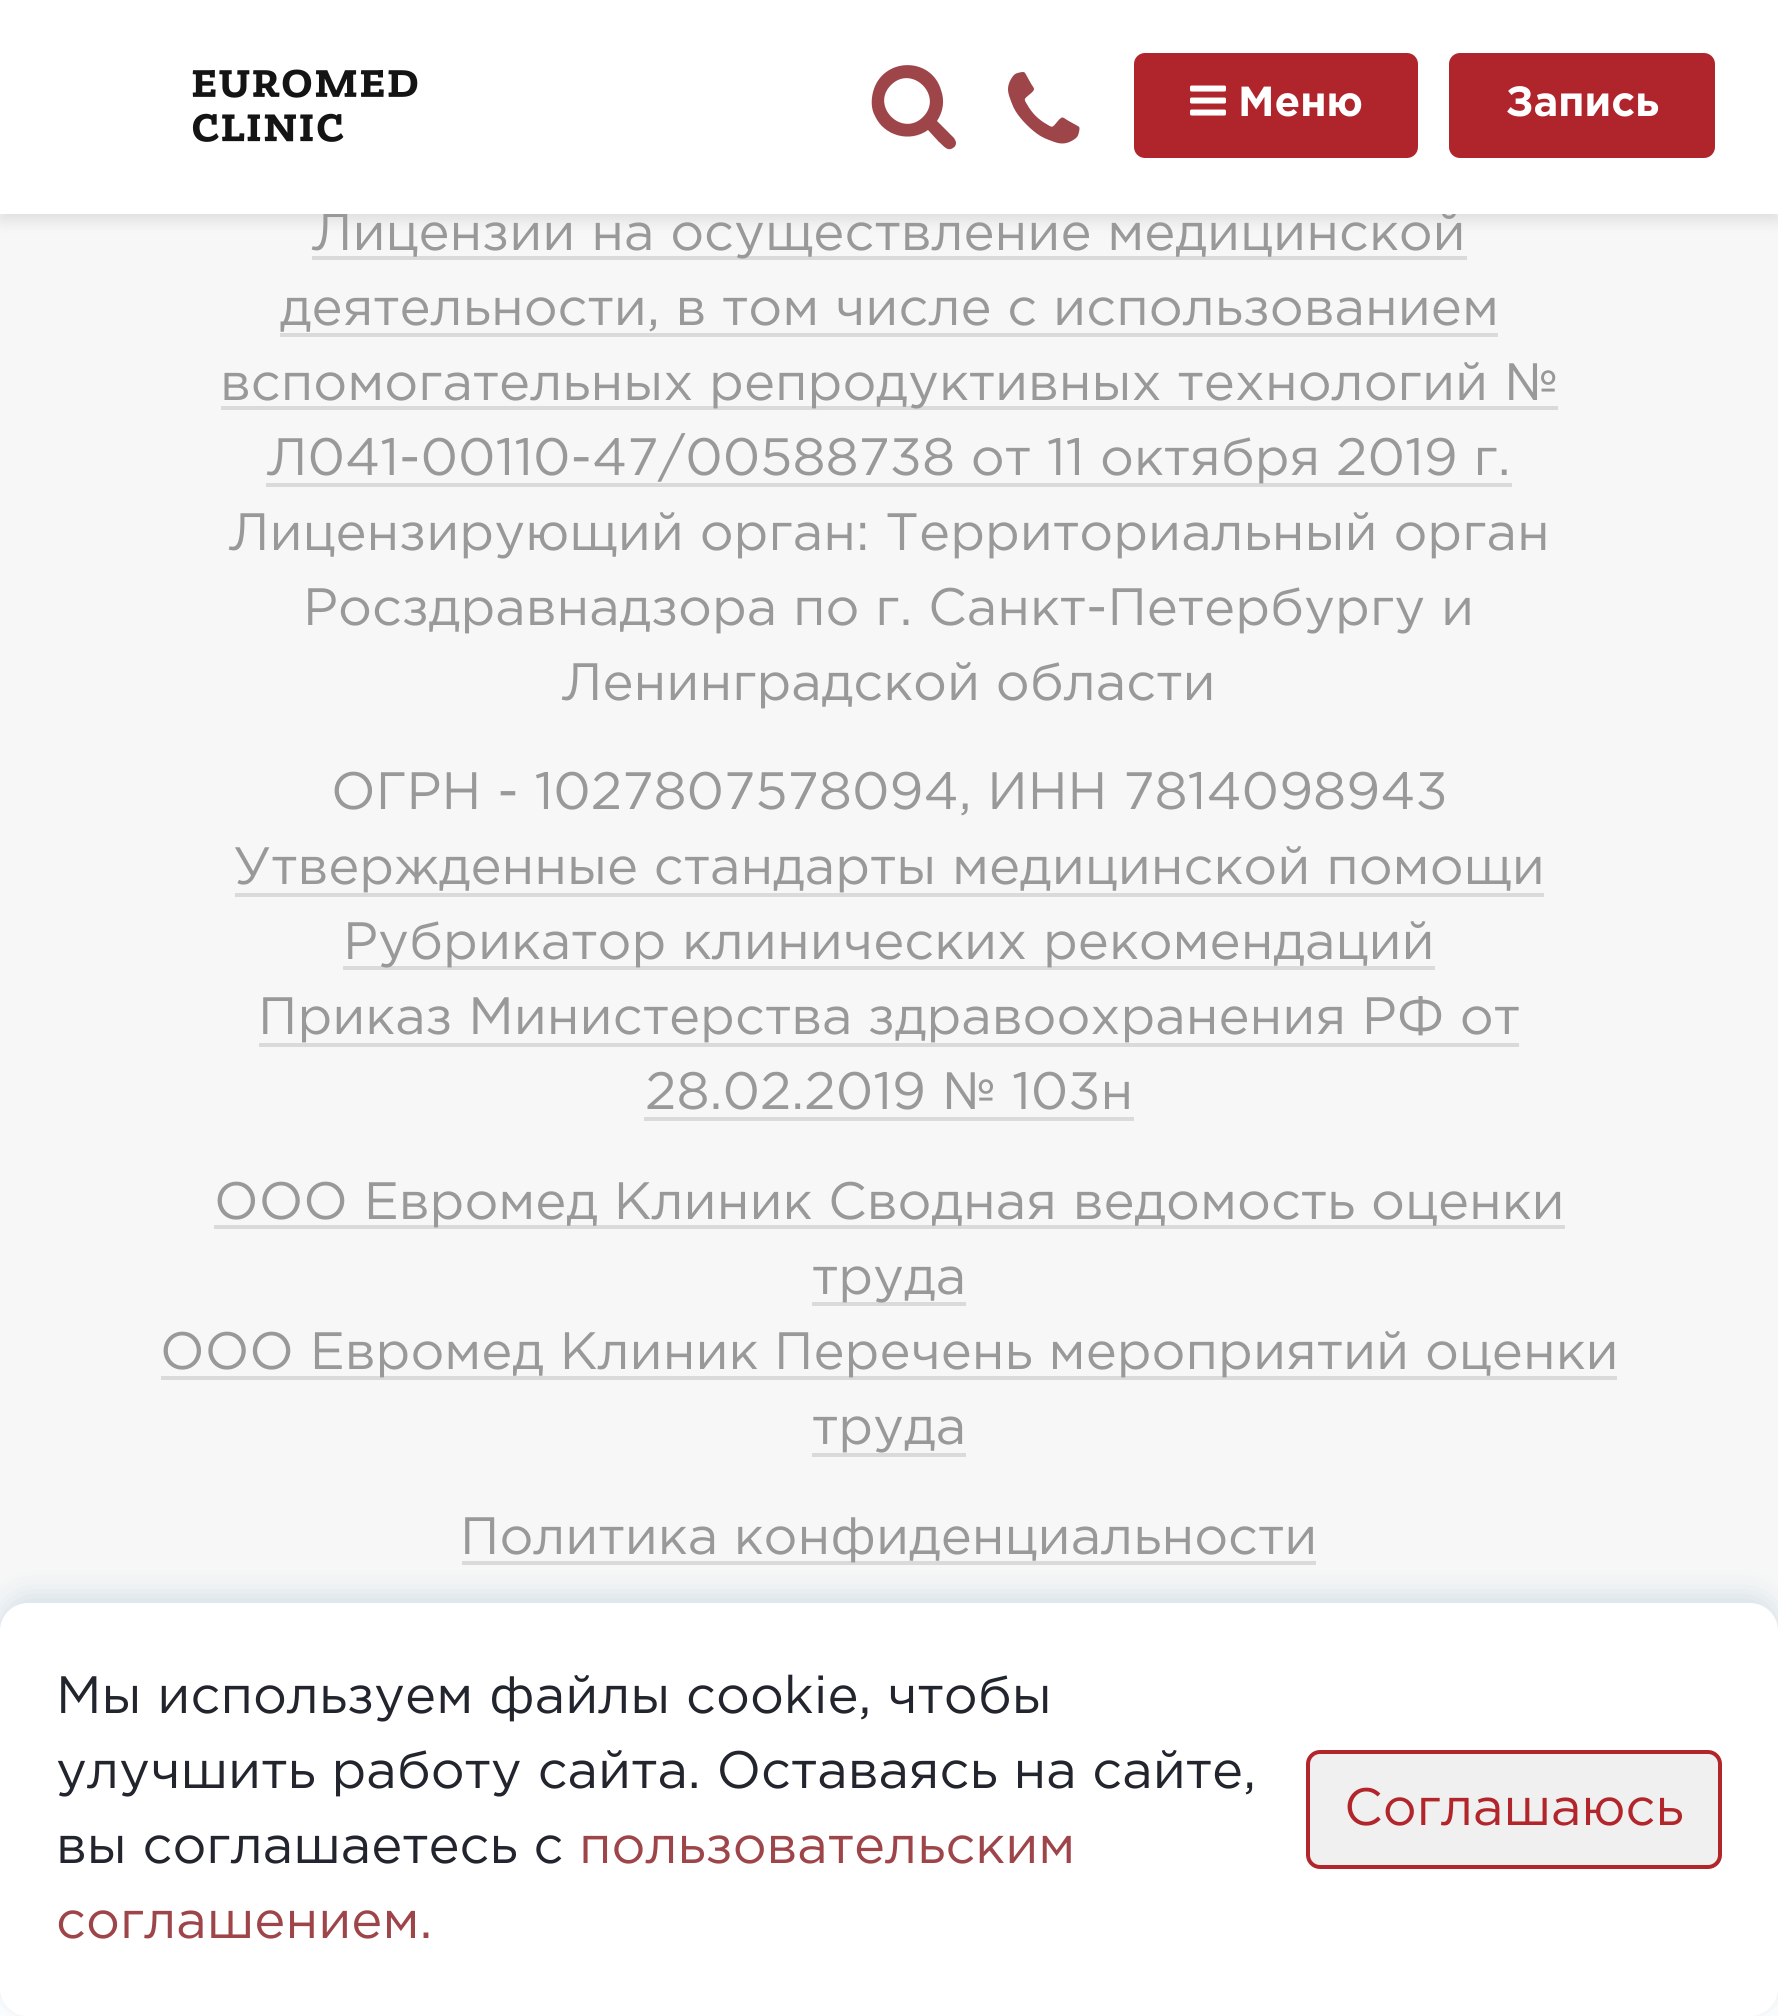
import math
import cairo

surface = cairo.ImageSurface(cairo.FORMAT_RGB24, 1778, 2016)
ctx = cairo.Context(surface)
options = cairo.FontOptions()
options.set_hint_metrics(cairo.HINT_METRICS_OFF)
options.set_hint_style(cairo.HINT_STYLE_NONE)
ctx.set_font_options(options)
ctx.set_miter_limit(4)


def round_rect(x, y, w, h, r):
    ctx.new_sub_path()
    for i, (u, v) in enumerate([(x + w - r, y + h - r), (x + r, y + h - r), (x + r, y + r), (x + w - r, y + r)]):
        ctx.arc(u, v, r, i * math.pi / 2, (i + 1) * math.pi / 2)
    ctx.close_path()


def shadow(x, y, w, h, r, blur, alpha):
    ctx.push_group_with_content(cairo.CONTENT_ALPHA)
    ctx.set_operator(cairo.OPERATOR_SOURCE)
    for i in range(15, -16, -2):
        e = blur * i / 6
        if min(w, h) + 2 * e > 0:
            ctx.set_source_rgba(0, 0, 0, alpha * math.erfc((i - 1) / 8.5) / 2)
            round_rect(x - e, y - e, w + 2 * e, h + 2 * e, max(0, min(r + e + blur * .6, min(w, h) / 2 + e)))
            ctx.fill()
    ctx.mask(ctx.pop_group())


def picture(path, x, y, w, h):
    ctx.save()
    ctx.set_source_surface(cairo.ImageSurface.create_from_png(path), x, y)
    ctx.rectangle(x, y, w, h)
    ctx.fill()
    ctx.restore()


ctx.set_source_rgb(1, 1, 1)
ctx.paint()
ctx.set_source_rgb(0.965, 0.965, 0.965)
ctx.rectangle(0, 214, 1778, 1417)
ctx.fill()
ctx.set_source_rgb(0, 0, 0)
shadow(0, 7, 1778, 214, 0, 7, 0.1)
ctx.set_source_rgb(0.855, 0.855, 0.855)
ctx.rectangle(312, 256, 1155, 4)
ctx.fill()
ctx.select_font_face("Gotham")
ctx.set_font_size(52.5)
ctx.set_source_rgb(0.6, 0.6, 0.6)
ctx.move_to(312, 250)
ctx.show_text("Лицензии на осуществление медицинской")
ctx.set_source_rgb(1, 1, 1)
ctx.rectangle(0, 0, 1778, 214)
ctx.fill()
picture("img1.png", 192, 69, 226, 73)
ctx.set_source_rgb(0.62, 0.271, 0.29)
ctx.new_path()
ctx.move_to(923, 117)
ctx.curve_to(944, 96, 912, 64, 891, 85)
ctx.curve_to(870, 106, 902, 138, 923, 117)
ctx.close_path()
ctx.move_to(956, 143)
ctx.curve_to(956, 145, 955, 147, 953, 148)
ctx.curve_to(947, 152, 943, 145, 939, 142)
ctx.line_to(928, 130)
ctx.curve_to(910, 143, 884, 136, 875, 116)
ctx.curve_to(871, 109, 871, 100, 873, 92)
ctx.curve_to(882, 57, 931, 56, 941, 90)
ctx.curve_to(945, 101, 943, 112, 937, 121)
ctx.line_to(954, 138)
ctx.curve_to(955, 140, 956, 141, 956, 143)
ctx.close_path()
ctx.fill()
picture("img2.png", 1008, 72, 72, 72)
ctx.set_source_rgb(0.69, 0.145, 0.169)
round_rect(1134, 53, 284, 105, 11)
ctx.fill()
picture("img3.png", 1190, 85, 36, 31)
ctx.select_font_face("Gotham", cairo.FONT_SLANT_NORMAL, cairo.FONT_WEIGHT_BOLD)
ctx.set_font_size(42)
ctx.set_source_rgb(1, 1, 1)
ctx.move_to(1238, 116)
ctx.show_text("Меню")
ctx.set_source_rgb(0.69, 0.145, 0.169)
round_rect(1449, 53, 266, 105, 11)
ctx.fill()
ctx.set_source_rgb(1, 1, 1)
ctx.move_to(1506, 116)
ctx.show_text("Запись")
ctx.select_font_face("Gotham")
ctx.set_font_size(52.5)
ctx.set_source_rgb(0.6, 0.6, 0.6)
ctx.move_to(280, 325)
ctx.show_text("деятельности, в том числе с использованием")
ctx.set_source_rgb(0.855, 0.855, 0.855)
ctx.rectangle(280, 333, 1218, 4)
ctx.fill()
ctx.rectangle(221, 406, 1337, 4)
ctx.fill()
ctx.set_source_rgb(0.6, 0.6, 0.6)
ctx.move_to(220, 400)
ctx.show_text("вспомогательных репродуктивных технологий №")
ctx.set_source_rgb(0.855, 0.855, 0.855)
ctx.rectangle(266, 483, 1246, 4)
ctx.fill()
ctx.set_source_rgb(0.6, 0.6, 0.6)
ctx.move_to(267, 475)
ctx.show_text("Л041-00110-47/00588738 от 11 октября 2019 г.")
ctx.move_to(229, 550)
ctx.show_text("Лицензирующий орган: Территориальный орган")
ctx.move_to(303, 625)
ctx.show_text("Росздравнадзора по г. Санкт-Петербургу и")
ctx.move_to(562, 700)
ctx.show_text("Ленинградской области")
ctx.move_to(331, 809)
ctx.show_text("ОГРН - 1027807578094, ИНН 7814098943")
ctx.move_to(233, 884)
ctx.show_text("Утвержденные стандарты медицинской помощи")
ctx.set_source_rgb(0.855, 0.855, 0.855)
ctx.rectangle(235, 893, 1309, 4)
ctx.fill()
ctx.rectangle(343, 966, 1092, 4)
ctx.fill()
ctx.set_source_rgb(0.6, 0.6, 0.6)
ctx.move_to(343, 959)
ctx.show_text("Рубрикатор клинических рекомендаций")
ctx.move_to(258, 1034)
ctx.show_text("Приказ Министерства здравоохранения РФ от")
ctx.set_source_rgb(0.855, 0.855, 0.855)
ctx.rectangle(259, 1043, 1260, 4)
ctx.fill()
ctx.set_source_rgb(0.6, 0.6, 0.6)
ctx.move_to(645, 1109)
ctx.show_text("28.02.2019 № 103н")
ctx.set_source_rgb(0.855, 0.855, 0.855)
ctx.rectangle(644, 1117, 490, 4)
ctx.fill()
ctx.rectangle(214, 1225, 1351, 4)
ctx.fill()
ctx.set_source_rgb(0.6, 0.6, 0.6)
ctx.move_to(214, 1219)
ctx.show_text("ООО Евромед Клиник Сводная ведомость оценки")
ctx.set_source_rgb(0.855, 0.855, 0.855)
ctx.rectangle(812, 1302, 154, 4)
ctx.fill()
ctx.set_source_rgb(0.6, 0.6, 0.6)
ctx.move_to(812, 1294)
ctx.show_text("труда")
ctx.set_source_rgb(0.855, 0.855, 0.855)
ctx.rectangle(161, 1376, 1456, 4)
ctx.fill()
ctx.set_source_rgb(0.6, 0.6, 0.6)
ctx.move_to(160, 1369)
ctx.show_text("ООО Евромед Клиник Перечень мероприятий оценки")
ctx.move_to(812, 1444)
ctx.show_text("труда")
ctx.set_source_rgb(0.855, 0.855, 0.855)
ctx.rectangle(812, 1453, 154, 4)
ctx.fill()
ctx.rectangle(462, 1561, 854, 4)
ctx.fill()
ctx.set_source_rgb(0.6, 0.6, 0.6)
ctx.move_to(460, 1554)
ctx.show_text("Политика конфиденциальности")
ctx.set_source_rgb(0.471, 0.627, 0.745)
shadow(0, 1596, 1778, 413, 28, 14, 0.3)
ctx.set_source_rgb(1, 1, 1)
round_rect(0, 1603, 1778, 413, 28)
ctx.fill()
ctx.set_source_rgb(0.133, 0.145, 0.176)
ctx.move_to(56, 1713)
ctx.show_text("Мы используем файлы cookie, чтобы")
ctx.move_to(56, 1788)
ctx.show_text("улучшить работу сайта. Оставаясь на сайте,")
ctx.move_to(56, 1863)
ctx.show_text("вы соглашаетесь с")
ctx.set_source_rgb(0.62, 0.271, 0.29)
ctx.move_to(579, 1863)
ctx.show_text("пользовательским")
ctx.move_to(56, 1938)
ctx.show_text("соглашением.")
ctx.set_source_rgb(0.941, 0.941, 0.941)
round_rect(1308, 1752, 412, 115, 12)
ctx.fill_preserve()
ctx.set_source_rgb(0.694, 0.145, 0.169)
ctx.set_line_width(4)
ctx.stroke()
ctx.move_to(1344, 1825)
ctx.show_text("Соглашаюсь")
surface.write_to_png("page.png")
